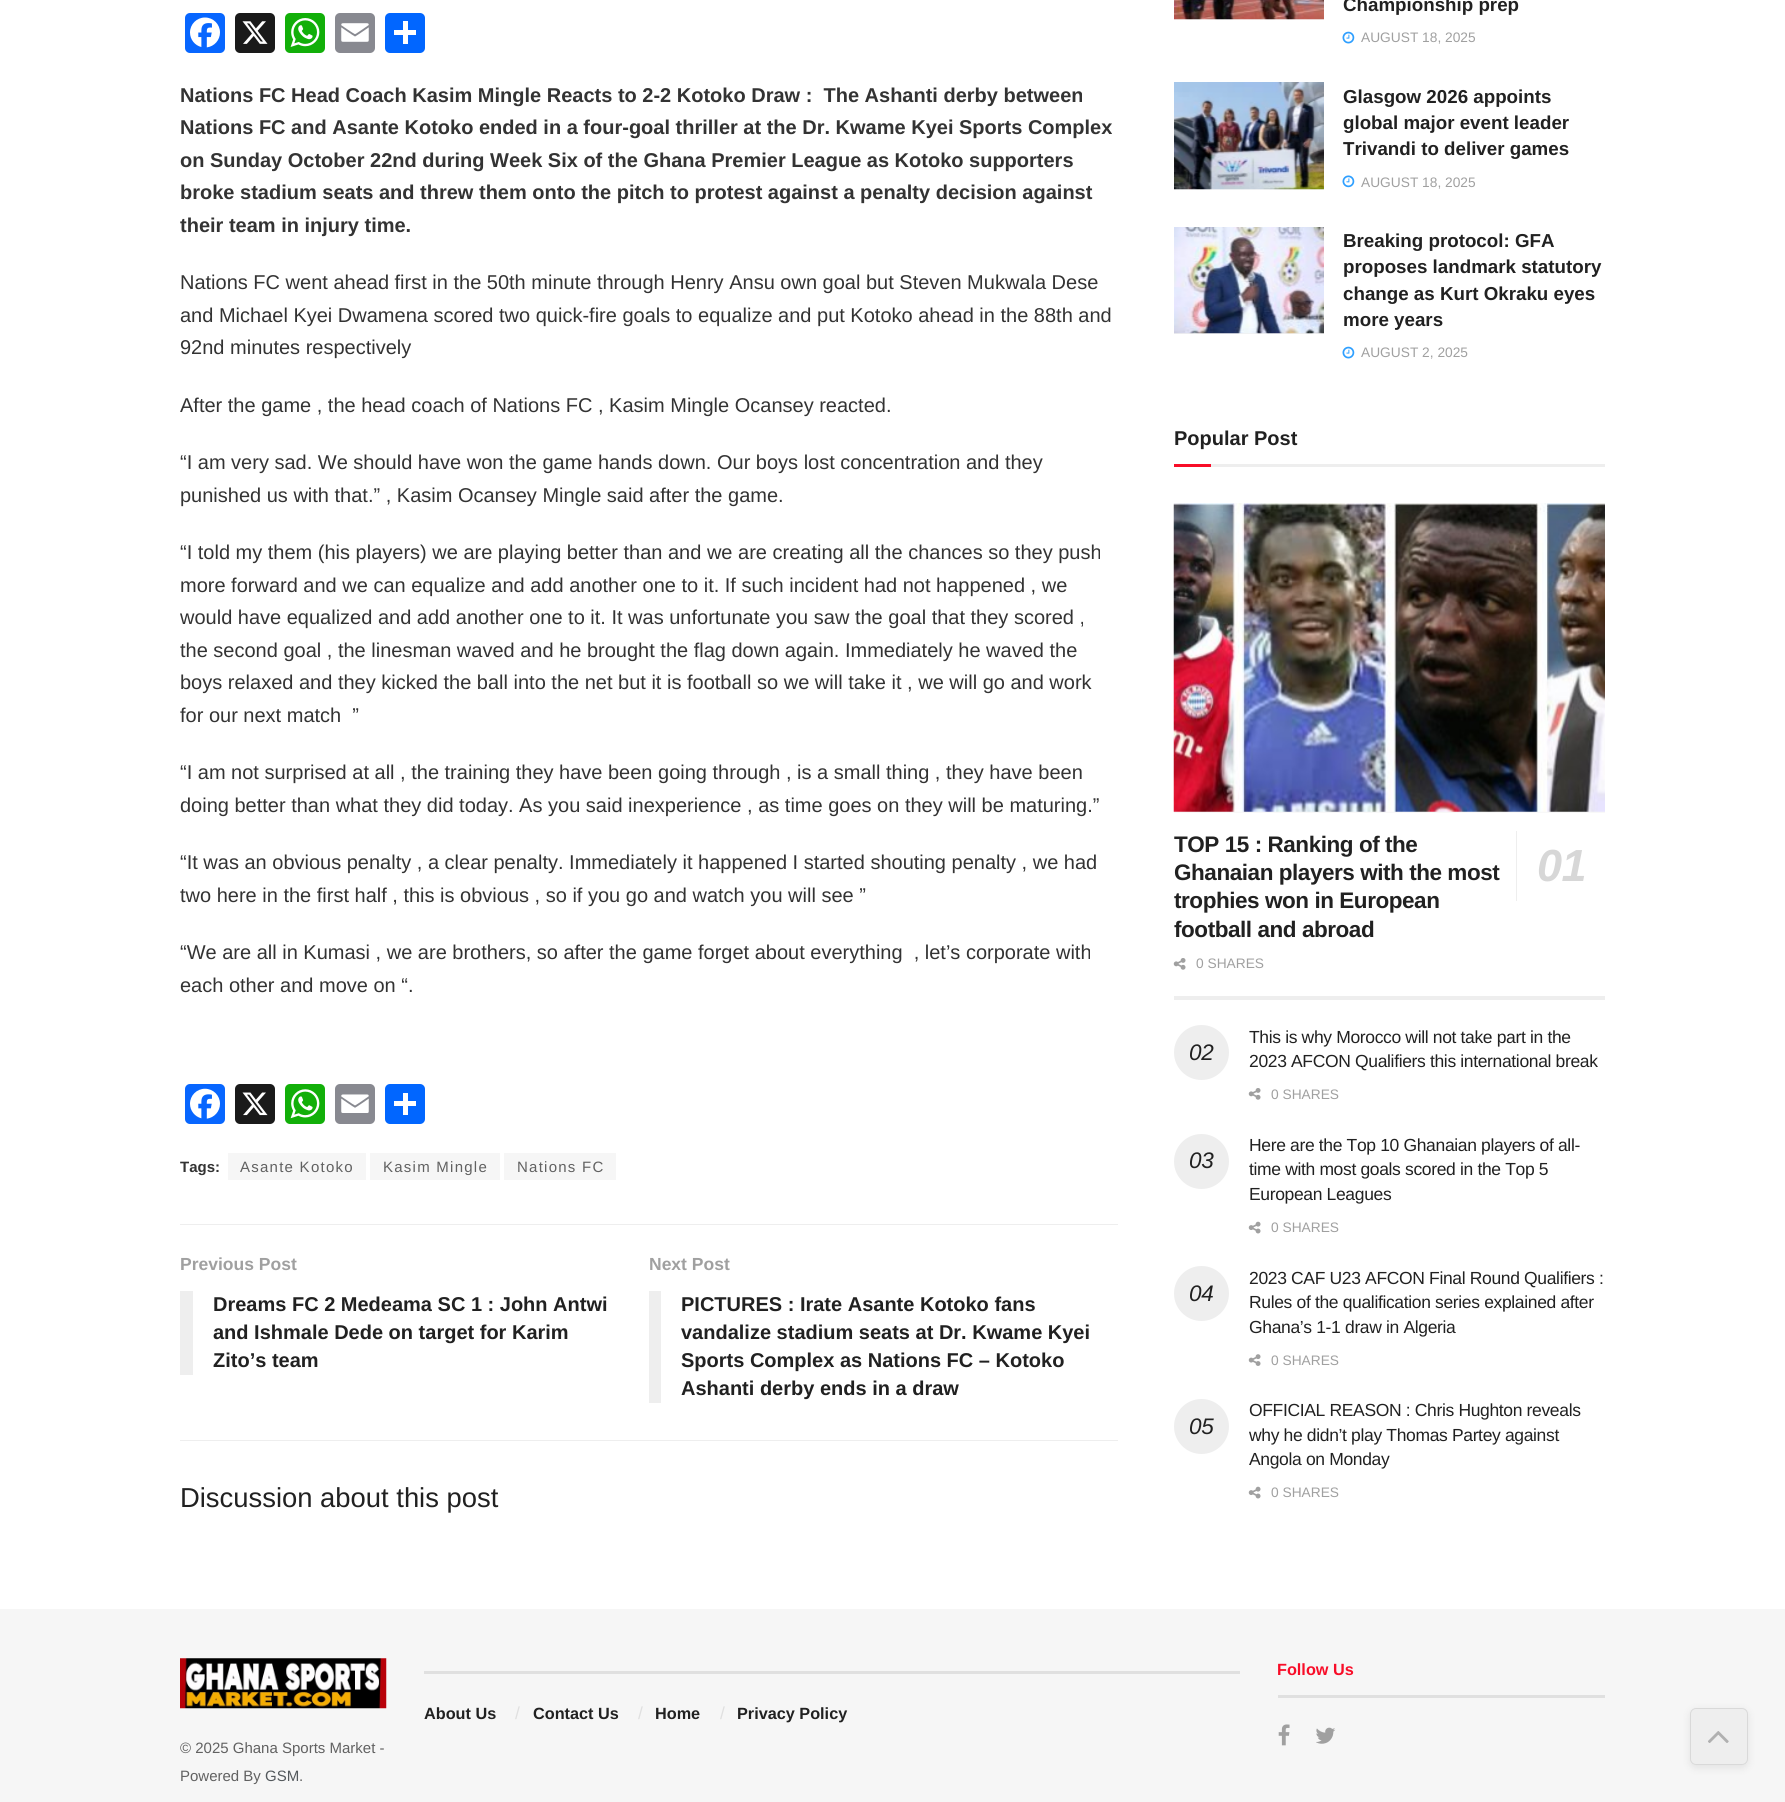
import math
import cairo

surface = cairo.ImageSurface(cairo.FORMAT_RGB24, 1785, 1802)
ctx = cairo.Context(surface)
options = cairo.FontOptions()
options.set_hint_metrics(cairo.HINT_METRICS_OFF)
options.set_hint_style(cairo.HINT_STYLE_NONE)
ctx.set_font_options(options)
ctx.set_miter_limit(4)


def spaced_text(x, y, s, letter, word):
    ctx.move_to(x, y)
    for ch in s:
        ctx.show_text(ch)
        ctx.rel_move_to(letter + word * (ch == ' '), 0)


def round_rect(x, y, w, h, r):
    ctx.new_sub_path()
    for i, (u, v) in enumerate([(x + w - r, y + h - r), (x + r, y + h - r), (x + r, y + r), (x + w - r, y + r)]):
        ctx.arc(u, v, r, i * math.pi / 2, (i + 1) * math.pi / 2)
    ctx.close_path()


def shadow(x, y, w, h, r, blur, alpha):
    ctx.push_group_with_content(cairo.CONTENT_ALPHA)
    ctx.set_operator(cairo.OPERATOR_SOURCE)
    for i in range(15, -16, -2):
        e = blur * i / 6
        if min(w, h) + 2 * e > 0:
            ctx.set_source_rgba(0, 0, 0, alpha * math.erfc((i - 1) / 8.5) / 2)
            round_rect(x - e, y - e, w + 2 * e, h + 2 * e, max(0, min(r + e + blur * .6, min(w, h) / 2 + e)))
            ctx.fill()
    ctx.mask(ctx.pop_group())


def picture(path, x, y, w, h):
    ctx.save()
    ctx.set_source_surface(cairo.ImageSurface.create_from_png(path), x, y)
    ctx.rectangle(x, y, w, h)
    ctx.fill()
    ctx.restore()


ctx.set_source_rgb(1, 1, 1)
ctx.paint()
ctx.set_source_rgb(0.031, 0.4, 1)
round_rect(185, 13, 40, 40, 5)
ctx.fill()
picture("img1.png", 190, 17, 30, 31)
ctx.set_source_rgb(0.102, 0.102, 0.102)
round_rect(235, 13, 40, 40, 5)
ctx.fill()
picture("img2.png", 242, 21, 26, 23)
ctx.set_source_rgb(0.071, 0.686, 0.039)
round_rect(285, 13, 40, 40, 5)
ctx.fill()
picture("img3.png", 290, 18, 30, 29)
ctx.set_source_rgb(0.533, 0.537, 0.565)
round_rect(335, 13, 40, 40, 5)
ctx.fill()
picture("img4.png", 341, 23, 28, 19)
ctx.set_source_rgb(0.004, 0.4, 1)
round_rect(385, 13, 40, 40, 5)
ctx.fill()
ctx.set_source_rgb(1, 1, 1)
ctx.rectangle(403, 21, 5, 23)
ctx.fill()
ctx.rectangle(394, 30, 22, 5)
ctx.fill()
ctx.select_font_face("Liberation Sans", cairo.FONT_SLANT_NORMAL, cairo.FONT_WEIGHT_BOLD)
ctx.set_font_size(20)
ctx.set_source_rgb(0.2, 0.2, 0.2)
ctx.move_to(180, 102)
ctx.show_text("Nations FC Head Coach Kasim Mingle Reacts to 2-2 Kotoko Draw :  The Ashanti derby between")
ctx.move_to(180, 134)
ctx.show_text("Nations FC and Asante Kotoko ended in a four-goal thriller at the Dr. Kwame Kyei Sports Complex")
ctx.move_to(180, 167)
ctx.show_text("on Sunday October 22nd during Week Six of the Ghana Premier League as Kotoko supporters")
ctx.move_to(180, 199)
ctx.show_text("broke stadium seats and threw them onto the pitch to protest against a penalty decision against")
ctx.move_to(180, 232)
ctx.show_text("their team in injury time.")
ctx.select_font_face("Liberation Sans")
ctx.move_to(180, 289)
ctx.show_text("Nations FC went ahead first in the 50th minute through Henry Ansu own goal but Steven Mukwala Dese")
ctx.move_to(180, 322)
ctx.show_text("and Michael Kyei Dwamena scored two quick-fire goals to equalize and put Kotoko ahead in the 88th and")
ctx.move_to(180, 354)
ctx.show_text("92nd minutes respectively")
ctx.move_to(180, 412)
ctx.show_text("After the game , the head coach of Nations FC , Kasim Mingle Ocansey reacted.")
ctx.move_to(180, 469)
ctx.show_text("“I am very sad. We should have won the game hands down. Our boys lost concentration and they")
ctx.move_to(180, 502)
ctx.show_text("punished us with that.” , Kasim Ocansey Mingle said after the game.")
ctx.move_to(180, 559)
ctx.show_text("“I told my them (his players) we are playing better than and we are creating all the chances so they push")
ctx.move_to(180, 592)
ctx.show_text("more forward and we can equalize and add another one to it. If such incident had not happened , we")
ctx.move_to(180, 624)
ctx.show_text("would have equalized and add another one to it. It was unfortunate you saw the goal that they scored ,")
ctx.move_to(180, 657)
ctx.show_text("the second goal , the linesman waved and he brought the flag down again. Immediately he waved the")
ctx.move_to(180, 689)
ctx.show_text("boys relaxed and they kicked the ball into the net but it is football so we will take it , we will go and work")
ctx.move_to(180, 722)
ctx.show_text("for our next match  ”")
ctx.move_to(180, 779)
ctx.show_text("“I am not surprised at all , the training they have been going through , is a small thing , they have been")
ctx.move_to(180, 812)
ctx.show_text("doing better than what they did today. As you said inexperience , as time goes on they will be maturing.”")
ctx.move_to(180, 869)
ctx.show_text("“It was an obvious penalty , a clear penalty. Immediately it happened I started shouting penalty , we had")
ctx.move_to(180, 902)
ctx.show_text("two here in the first half , this is obvious , so if you go and watch you will see ”")
ctx.move_to(180, 959)
ctx.show_text("“We are all in Kumasi , we are brothers, so after the game forget about everything  , let’s corporate with")
ctx.move_to(180, 992)
ctx.show_text("each other and move on “.")
ctx.set_source_rgb(0.031, 0.4, 1)
round_rect(185, 1084, 40, 40, 5)
ctx.fill()
picture("img5.png", 190, 1088, 30, 31)
ctx.set_source_rgb(0.102, 0.102, 0.102)
round_rect(235, 1084, 40, 40, 5)
ctx.fill()
picture("img6.png", 242, 1092, 26, 24)
ctx.set_source_rgb(0.071, 0.686, 0.039)
round_rect(285, 1084, 40, 40, 5)
ctx.fill()
picture("img7.png", 290, 1089, 30, 30)
ctx.set_source_rgb(0.533, 0.537, 0.565)
round_rect(335, 1084, 40, 40, 5)
ctx.fill()
picture("img8.png", 341, 1094, 28, 19)
ctx.set_source_rgb(0.004, 0.4, 1)
round_rect(385, 1084, 40, 40, 5)
ctx.fill()
ctx.set_source_rgb(1, 1, 1)
ctx.rectangle(403, 1093, 5, 22)
ctx.fill()
ctx.rectangle(394, 1101, 22, 5)
ctx.fill()
ctx.select_font_face("Liberation Sans", cairo.FONT_SLANT_NORMAL, cairo.FONT_WEIGHT_BOLD)
ctx.set_font_size(15)
ctx.set_source_rgb(0.2, 0.2, 0.2)
ctx.move_to(180, 1172)
ctx.show_text("Tags:")
ctx.set_source_rgb(0.961, 0.961, 0.961)
ctx.rectangle(228, 1153, 138, 27)
ctx.fill()
ctx.select_font_face("Liberation Sans")
ctx.set_source_rgb(0.38, 0.38, 0.38)
spaced_text(240, 1172, "Asante Kotoko", 1.25, 0)
ctx.set_source_rgb(0.961, 0.961, 0.961)
ctx.rectangle(370, 1153, 130, 27)
ctx.fill()
ctx.set_source_rgb(0.38, 0.38, 0.38)
spaced_text(383, 1172, "Kasim Mingle", 1.25, 0)
ctx.set_source_rgb(0.961, 0.961, 0.961)
ctx.rectangle(504, 1153, 112, 27)
ctx.fill()
ctx.set_source_rgb(0.38, 0.38, 0.38)
spaced_text(517, 1172, "Nations FC", 1.25, 0)
ctx.set_source_rgb(0.933, 0.933, 0.933)
ctx.rectangle(180, 1224, 938, 1)
ctx.fill()
ctx.rectangle(180, 1440, 938, 1)
ctx.fill()
ctx.select_font_face("Liberation Sans", cairo.FONT_SLANT_NORMAL, cairo.FONT_WEIGHT_BOLD)
ctx.set_font_size(17.5)
ctx.set_source_rgb(0.627, 0.627, 0.627)
ctx.move_to(180, 1270)
ctx.show_text("Previous Post")
ctx.set_source_rgb(0.933, 0.933, 0.933)
ctx.rectangle(180, 1291, 13, 84)
ctx.fill()
ctx.set_font_size(20)
ctx.set_source_rgb(0.129, 0.129, 0.129)
ctx.move_to(213, 1311)
ctx.show_text("Dreams FC 2 Medeama SC 1 : John Antwi")
ctx.move_to(213, 1339)
ctx.show_text("and Ishmale Dede on target for Karim")
ctx.move_to(213, 1367)
ctx.show_text("Zito’s team")
ctx.set_font_size(17.5)
ctx.set_source_rgb(0.627, 0.627, 0.627)
ctx.move_to(649, 1270)
ctx.show_text("Next Post")
ctx.set_source_rgb(0.933, 0.933, 0.933)
ctx.rectangle(649, 1291, 12, 112)
ctx.fill()
ctx.set_font_size(20)
ctx.set_source_rgb(0.129, 0.129, 0.129)
ctx.move_to(681, 1311)
ctx.show_text("PICTURES : Irate Asante Kotoko fans")
ctx.move_to(681, 1339)
ctx.show_text("vandalize stadium seats at Dr. Kwame Kyei")
ctx.move_to(681, 1367)
ctx.show_text("Sports Complex as Nations FC – Kotoko")
ctx.move_to(681, 1395)
ctx.show_text("Ashanti derby ends in a draw")
ctx.select_font_face("Liberation Sans")
ctx.set_font_size(27.4)
ctx.move_to(180, 1507)
ctx.show_text("Discussion about this post")
ctx.set_source_rgb(0.969, 0.969, 0.969)
ctx.rectangle(1174, 19, 150, 1)
ctx.fill()
picture("img9.png", 1174, 0, 150, 20)
ctx.select_font_face("Liberation Sans", cairo.FONT_SLANT_NORMAL, cairo.FONT_WEIGHT_BOLD)
ctx.set_font_size(18.75)
ctx.set_source_rgb(0.129, 0.129, 0.129)
ctx.move_to(1343, 11)
ctx.show_text("Championship prep")
picture("img10.png", 1342, 31, 13, 13)
ctx.select_font_face("Liberation Sans")
ctx.set_font_size(13.75)
ctx.set_source_rgb(0.627, 0.627, 0.627)
ctx.move_to(1361, 42)
ctx.show_text("AUGUST 18, 2025")
ctx.set_source_rgb(0.969, 0.969, 0.969)
ctx.rectangle(1174, 189, 150, 1)
ctx.fill()
picture("img11.png", 1174, 82, 150, 108)
ctx.select_font_face("Liberation Sans", cairo.FONT_SLANT_NORMAL, cairo.FONT_WEIGHT_BOLD)
ctx.set_font_size(18.75)
ctx.set_source_rgb(0.129, 0.129, 0.129)
ctx.move_to(1343, 103)
ctx.show_text("Glasgow 2026 appoints")
ctx.move_to(1343, 129)
ctx.show_text("global major event leader")
ctx.move_to(1343, 155)
ctx.show_text("Trivandi to deliver games")
picture("img12.png", 1342, 175, 13, 13)
ctx.select_font_face("Liberation Sans")
ctx.set_font_size(13.75)
ctx.set_source_rgb(0.627, 0.627, 0.627)
ctx.move_to(1361, 187)
ctx.show_text("AUGUST 18, 2025")
ctx.set_source_rgb(0.969, 0.969, 0.969)
ctx.rectangle(1174, 333, 150, 1)
ctx.fill()
picture("img13.png", 1174, 227, 150, 107)
ctx.select_font_face("Liberation Sans", cairo.FONT_SLANT_NORMAL, cairo.FONT_WEIGHT_BOLD)
ctx.set_font_size(18.75)
ctx.set_source_rgb(0.129, 0.129, 0.129)
ctx.move_to(1343, 247)
ctx.show_text("Breaking protocol: GFA")
ctx.move_to(1343, 273)
ctx.show_text("proposes landmark statutory")
ctx.move_to(1343, 300)
ctx.show_text("change as Kurt Okraku eyes")
ctx.move_to(1343, 326)
ctx.show_text("more years")
picture("img10.png", 1342, 346, 13, 13)
ctx.select_font_face("Liberation Sans")
ctx.set_font_size(13.75)
ctx.set_source_rgb(0.627, 0.627, 0.627)
ctx.move_to(1361, 357)
ctx.show_text("AUGUST 2, 2025")
ctx.set_source_rgb(0.933, 0.933, 0.933)
ctx.rectangle(1211, 464, 394, 3)
ctx.fill()
ctx.select_font_face("Liberation Sans", cairo.FONT_SLANT_NORMAL, cairo.FONT_WEIGHT_BOLD)
ctx.set_font_size(20)
ctx.set_source_rgb(0.129, 0.129, 0.129)
ctx.move_to(1174, 445)
ctx.show_text("Popular Post")
ctx.set_source_rgb(0.969, 0.051, 0.157)
ctx.rectangle(1174, 464, 37, 3)
ctx.fill()
ctx.set_source_rgb(0.933, 0.933, 0.933)
ctx.rectangle(1174, 996, 431, 4)
ctx.fill()
ctx.set_source_rgb(0.969, 0.969, 0.969)
ctx.rectangle(1174, 811, 431, 2)
ctx.fill()
picture("img15.png", 1174, 503, 431, 1)
picture("img14.png", 1173, 503, 432, 309)
ctx.set_font_size(22.5)
ctx.set_source_rgb(0.129, 0.129, 0.129)
spaced_text(1174, 852, "TOP 15 : Ranking of the", -0.45, 0)
spaced_text(1174, 880, "Ghanaian players with the most", -0.45, 0)
ctx.set_source_rgb(0.933, 0.933, 0.933)
ctx.rectangle(1516, 831, 1, 70)
ctx.fill()
ctx.select_font_face("Liberation Sans", cairo.FONT_SLANT_ITALIC, cairo.FONT_WEIGHT_BOLD)
ctx.set_font_size(45)
ctx.set_source_rgb(0.843, 0.843, 0.843)
spaced_text(1537, 881, "01", -0.45, 0)
ctx.select_font_face("Liberation Sans", cairo.FONT_SLANT_NORMAL, cairo.FONT_WEIGHT_BOLD)
ctx.set_font_size(22.5)
ctx.set_source_rgb(0.129, 0.129, 0.129)
spaced_text(1174, 908, "trophies won in European", -0.45, 0)
spaced_text(1174, 937, "football and abroad", -0.45, 0)
picture("img16.png", 1173, 958, 13, 12)
ctx.select_font_face("Liberation Sans")
ctx.set_font_size(13.75)
ctx.set_source_rgb(0.627, 0.627, 0.627)
ctx.move_to(1196, 968)
ctx.show_text("0 SHARES")
ctx.set_font_size(17.5)
ctx.set_source_rgb(0.129, 0.129, 0.129)
spaced_text(1249, 1043, "This is why Morocco will not take part in the", -0.35, 0)
ctx.set_source_rgb(0.933, 0.933, 0.933)
ctx.new_path()
ctx.arc(1201.5, 1052.5, 27.5, 0, 2 * math.pi)
ctx.fill()
ctx.select_font_face("Liberation Sans", cairo.FONT_SLANT_ITALIC)
ctx.set_font_size(22.5)
ctx.set_source_rgb(0.129, 0.129, 0.129)
spaced_text(1189, 1060, "02", -0.35, 0)
ctx.select_font_face("Liberation Sans")
ctx.set_font_size(17.5)
spaced_text(1249, 1067, "2023 AFCON Qualifiers this international break", -0.35, 0)
picture("img16.png", 1248, 1088, 13, 12)
ctx.set_font_size(13.75)
ctx.set_source_rgb(0.627, 0.627, 0.627)
ctx.move_to(1271, 1099)
ctx.show_text("0 SHARES")
ctx.set_font_size(17.5)
ctx.set_source_rgb(0.129, 0.129, 0.129)
spaced_text(1249, 1151, "Here are the Top 10 Ghanaian players of all-", -0.35, 0)
ctx.set_source_rgb(0.933, 0.933, 0.933)
ctx.new_path()
ctx.arc(1201.5, 1161.5, 27.5, 0, 2 * math.pi)
ctx.fill()
ctx.select_font_face("Liberation Sans", cairo.FONT_SLANT_ITALIC)
ctx.set_font_size(22.5)
ctx.set_source_rgb(0.129, 0.129, 0.129)
spaced_text(1189, 1168, "03", -0.35, 0)
ctx.select_font_face("Liberation Sans")
ctx.set_font_size(17.5)
spaced_text(1249, 1175, "time with most goals scored in the Top 5", -0.35, 0)
spaced_text(1249, 1200, "European Leagues", -0.35, 0)
picture("img17.png", 1248, 1221, 13, 13)
ctx.set_font_size(13.75)
ctx.set_source_rgb(0.627, 0.627, 0.627)
ctx.move_to(1271, 1232)
ctx.show_text("0 SHARES")
ctx.set_font_size(17.5)
ctx.set_source_rgb(0.129, 0.129, 0.129)
spaced_text(1249, 1284, "2023 CAF U23 AFCON Final Round Qualifiers :", -0.35, 0)
ctx.set_source_rgb(0.933, 0.933, 0.933)
ctx.new_path()
ctx.arc(1201.5, 1293.5, 27.5, 0, 2 * math.pi)
ctx.fill()
ctx.select_font_face("Liberation Sans", cairo.FONT_SLANT_ITALIC)
ctx.set_font_size(22.5)
ctx.set_source_rgb(0.129, 0.129, 0.129)
spaced_text(1189, 1301, "04", -0.35, 0)
ctx.select_font_face("Liberation Sans")
ctx.set_font_size(17.5)
spaced_text(1249, 1308, "Rules of the qualification series explained after", -0.35, 0)
spaced_text(1249, 1333, "Ghana’s 1-1 draw in Algeria", -0.35, 0)
picture("img18.png", 1248, 1354, 13, 12)
ctx.set_font_size(13.75)
ctx.set_source_rgb(0.627, 0.627, 0.627)
ctx.move_to(1271, 1365)
ctx.show_text("0 SHARES")
ctx.set_font_size(17.5)
ctx.set_source_rgb(0.129, 0.129, 0.129)
spaced_text(1249, 1416, "OFFICIAL REASON : Chris Hughton reveals", -0.35, 0)
ctx.set_source_rgb(0.933, 0.933, 0.933)
ctx.new_path()
ctx.arc(1201.5, 1426.5, 27.5, 0, 2 * math.pi)
ctx.fill()
ctx.select_font_face("Liberation Sans", cairo.FONT_SLANT_ITALIC)
ctx.set_font_size(22.5)
ctx.set_source_rgb(0.129, 0.129, 0.129)
spaced_text(1189, 1434, "05", -0.35, 0)
ctx.select_font_face("Liberation Sans")
ctx.set_font_size(17.5)
spaced_text(1249, 1441, "why he didn’t play Thomas Partey against", -0.35, 0)
spaced_text(1249, 1465, "Angola on Monday", -0.35, 0)
picture("img17.png", 1248, 1486, 13, 13)
ctx.set_font_size(13.75)
ctx.set_source_rgb(0.627, 0.627, 0.627)
ctx.move_to(1271, 1497)
ctx.show_text("0 SHARES")
ctx.set_source_rgb(0.961, 0.961, 0.961)
ctx.rectangle(0, 1609, 1785, 193)
ctx.fill()
ctx.set_source_rgb(0.878, 0.878, 0.878)
ctx.rectangle(1278, 1695, 327, 3)
ctx.fill()
ctx.select_font_face("Liberation Sans", cairo.FONT_SLANT_NORMAL, cairo.FONT_WEIGHT_BOLD)
ctx.set_font_size(16.25)
ctx.set_source_rgb(0.969, 0.051, 0.157)
ctx.move_to(1277, 1675)
ctx.show_text("Follow Us")
picture("img19.png", 1278, 1724, 12, 22)
picture("img20.png", 1316, 1727, 20, 17)
ctx.set_source_rgb(0.878, 0.878, 0.878)
ctx.rectangle(424, 1671, 816, 3)
ctx.fill()
ctx.set_source_rgb(0.129, 0.129, 0.129)
ctx.move_to(424, 1719)
ctx.show_text("About Us")
ctx.select_font_face("Liberation Sans")
ctx.set_font_size(17.5)
ctx.set_source_rgb(0.878, 0.878, 0.878)
ctx.move_to(515, 1719)
ctx.show_text("/")
ctx.select_font_face("Liberation Sans", cairo.FONT_SLANT_NORMAL, cairo.FONT_WEIGHT_BOLD)
ctx.set_font_size(16.25)
ctx.set_source_rgb(0.129, 0.129, 0.129)
ctx.move_to(533, 1719)
ctx.show_text("Contact Us")
ctx.select_font_face("Liberation Sans")
ctx.set_font_size(17.5)
ctx.set_source_rgb(0.878, 0.878, 0.878)
ctx.move_to(638, 1719)
ctx.show_text("/")
ctx.select_font_face("Liberation Sans", cairo.FONT_SLANT_NORMAL, cairo.FONT_WEIGHT_BOLD)
ctx.set_font_size(16.25)
ctx.set_source_rgb(0.129, 0.129, 0.129)
ctx.move_to(655, 1719)
ctx.show_text("Home")
ctx.select_font_face("Liberation Sans")
ctx.set_font_size(17.5)
ctx.set_source_rgb(0.878, 0.878, 0.878)
ctx.move_to(720, 1719)
ctx.show_text("/")
ctx.select_font_face("Liberation Sans", cairo.FONT_SLANT_NORMAL, cairo.FONT_WEIGHT_BOLD)
ctx.set_font_size(16.25)
ctx.set_source_rgb(0.129, 0.129, 0.129)
ctx.move_to(737, 1719)
ctx.show_text("Privacy Policy")
picture("img21.png", 180, 1658, 207, 51)
ctx.select_font_face("Liberation Sans")
ctx.set_font_size(15)
ctx.set_source_rgb(0.38, 0.38, 0.38)
ctx.move_to(180, 1753)
ctx.show_text("© 2025 Ghana Sports Market -")
ctx.move_to(180, 1781)
ctx.show_text("Powered By")
ctx.set_source_rgb(0.325, 0.345, 0.361)
ctx.move_to(265, 1781)
ctx.show_text("GSM")
ctx.set_source_rgb(0.38, 0.38, 0.38)
ctx.move_to(299, 1781)
ctx.show_text(".")
ctx.save()
ctx.set_fill_rule(cairo.FILL_RULE_EVEN_ODD)
ctx.new_path()
ctx.move_to(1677, 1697)
ctx.line_to(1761, 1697)
ctx.line_to(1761, 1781)
ctx.line_to(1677, 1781)
ctx.close_path()
ctx.move_to(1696, 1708)
ctx.line_to(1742, 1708)
ctx.curve_to(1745.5, 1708, 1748, 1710.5, 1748, 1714)
ctx.line_to(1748, 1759)
ctx.curve_to(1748, 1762.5, 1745.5, 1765, 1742, 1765)
ctx.line_to(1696, 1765)
ctx.curve_to(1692.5, 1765, 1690, 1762.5, 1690, 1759)
ctx.line_to(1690, 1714)
ctx.curve_to(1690, 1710.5, 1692.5, 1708, 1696, 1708)
ctx.close_path()
ctx.clip()
ctx.set_source_rgb(0.192, 0.192, 0.192)
shadow(1690, 1710, 58, 58, 6, 4, 0.1)
ctx.restore()
ctx.set_source_rgba(0.761, 0.761, 0.761, 0.15)
round_rect(1690, 1708, 58, 57, 6)
ctx.fill()
round_rect(1690.5, 1708.5, 57, 56, 5.5)
ctx.set_source_rgba(0.192, 0.192, 0.192, 0.11)
ctx.set_line_width(1)
ctx.stroke()
picture("img22.png", 1708, 1731, 21, 12)
surface.write_to_png("page.png")
